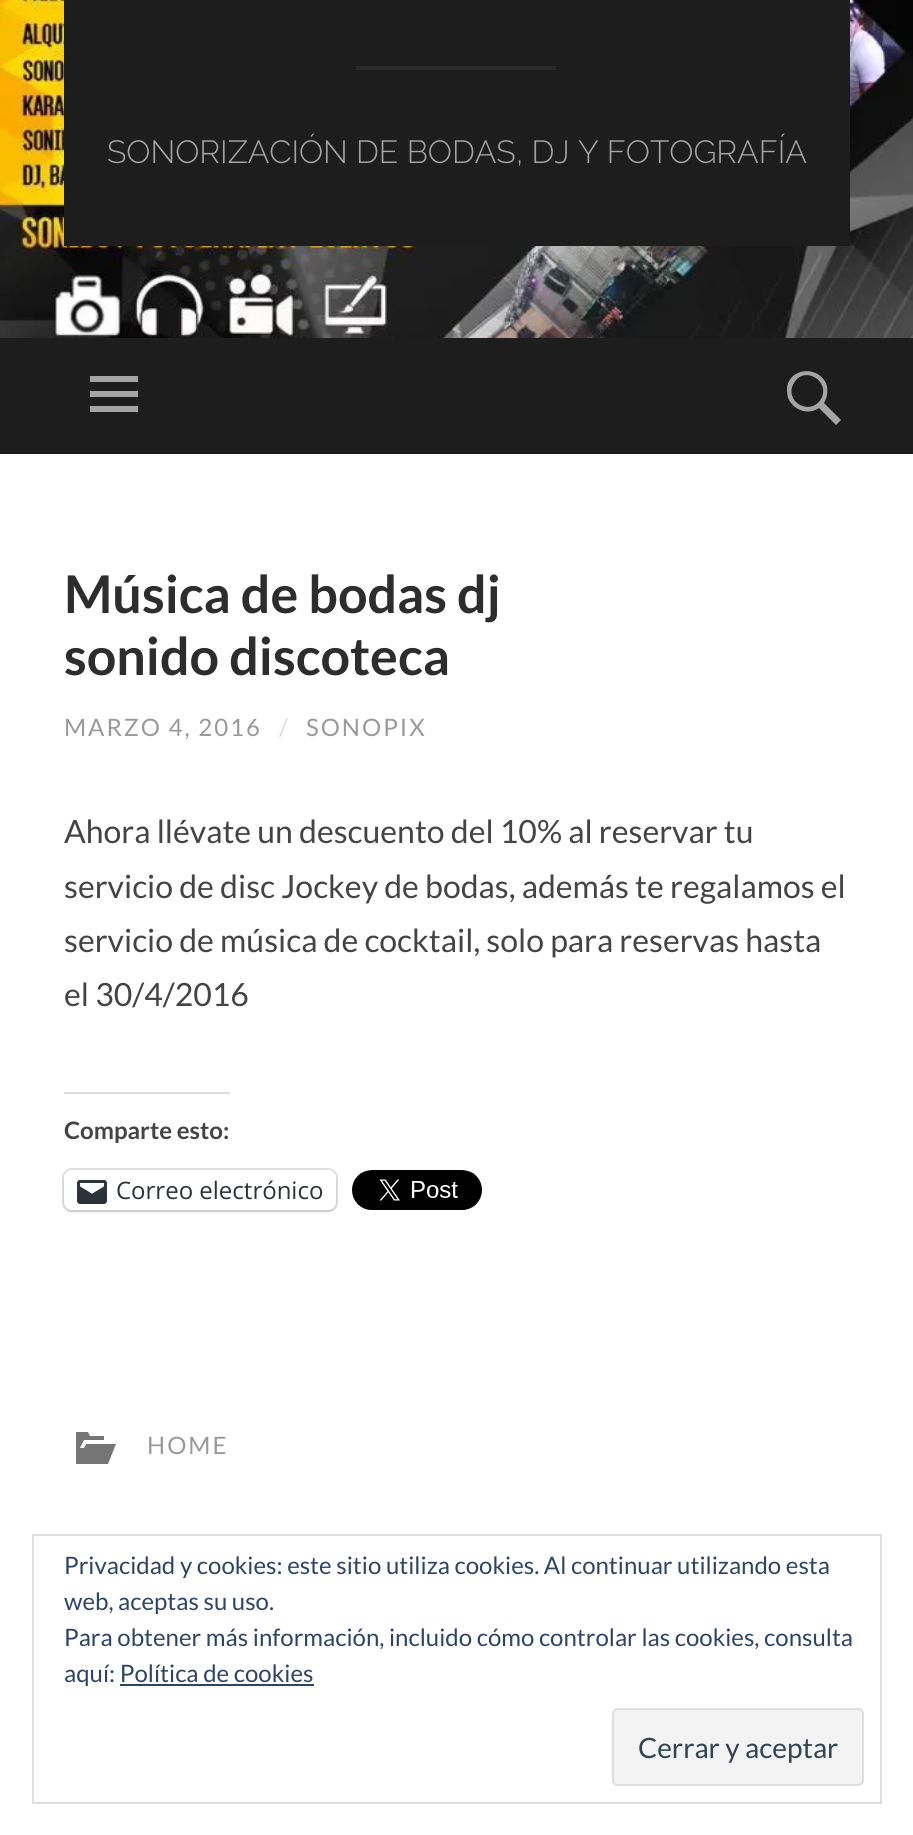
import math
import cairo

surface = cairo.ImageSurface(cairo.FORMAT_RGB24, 913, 1835)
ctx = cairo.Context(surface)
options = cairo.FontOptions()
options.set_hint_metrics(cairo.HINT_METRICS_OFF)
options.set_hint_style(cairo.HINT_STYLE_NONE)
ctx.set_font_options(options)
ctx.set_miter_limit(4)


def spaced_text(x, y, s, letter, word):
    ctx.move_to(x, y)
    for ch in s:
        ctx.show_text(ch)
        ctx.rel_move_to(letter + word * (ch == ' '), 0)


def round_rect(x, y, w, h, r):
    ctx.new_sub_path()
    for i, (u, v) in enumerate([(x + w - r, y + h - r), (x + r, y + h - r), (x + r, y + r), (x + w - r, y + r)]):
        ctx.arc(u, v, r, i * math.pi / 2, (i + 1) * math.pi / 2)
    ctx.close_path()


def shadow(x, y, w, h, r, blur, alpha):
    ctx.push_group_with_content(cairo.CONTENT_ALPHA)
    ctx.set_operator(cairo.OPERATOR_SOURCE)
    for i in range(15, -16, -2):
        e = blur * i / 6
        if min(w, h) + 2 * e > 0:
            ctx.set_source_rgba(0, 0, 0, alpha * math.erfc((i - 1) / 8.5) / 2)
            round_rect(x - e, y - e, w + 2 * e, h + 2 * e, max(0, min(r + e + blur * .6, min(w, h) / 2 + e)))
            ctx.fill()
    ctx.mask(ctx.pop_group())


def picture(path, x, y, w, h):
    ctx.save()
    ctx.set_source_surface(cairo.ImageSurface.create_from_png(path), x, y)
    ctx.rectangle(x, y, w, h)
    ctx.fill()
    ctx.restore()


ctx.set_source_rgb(1, 1, 1)
ctx.paint()
picture("img1.png", 0, 0, 913, 338)
ctx.set_source_rgb(0.114, 0.114, 0.114)
ctx.rectangle(64, 0, 786, 246)
ctx.fill()
ctx.set_source_rgb(0.169, 0.169, 0.169)
ctx.rectangle(356, 66, 200, 4)
ctx.fill()
ctx.select_font_face("Raleway Light")
ctx.set_font_size(32)
ctx.set_source_rgb(0.647, 0.647, 0.647)
ctx.move_to(107, 163)
ctx.show_text("SONORIZACIÓN DE BODAS, DJ Y FOTOGRAFÍA")
ctx.set_source_rgb(0.114, 0.114, 0.114)
ctx.rectangle(0, 338, 913, 116)
ctx.fill()
ctx.set_source_rgb(0.647, 0.647, 0.647)
ctx.new_path()
ctx.move_to(90, 412)
ctx.line_to(90, 406)
ctx.line_to(138, 406)
ctx.line_to(138, 412)
ctx.close_path()
ctx.move_to(90, 376)
ctx.line_to(138, 376)
ctx.line_to(138, 382)
ctx.line_to(90, 382)
ctx.close_path()
ctx.move_to(90, 397)
ctx.line_to(90, 391)
ctx.line_to(138, 391)
ctx.line_to(138, 397)
ctx.close_path()
ctx.fill()
ctx.new_path()
ctx.move_to(841, 420)
ctx.line_to(836, 425)
ctx.line_to(819, 408)
ctx.curve_to(809, 415, 795, 411, 789, 400)
ctx.curve_to(787, 396, 787, 392, 787, 387)
ctx.curve_to(791, 366, 821, 366, 827, 386)
ctx.curve_to(828, 392, 827, 398, 824, 403)
ctx.close_path()
ctx.move_to(794, 383)
ctx.curve_to(783, 401, 810, 417, 821, 399)
ctx.curve_to(831, 381, 804, 365, 794, 383)
ctx.close_path()
ctx.fill()
ctx.select_font_face("Lato", cairo.FONT_SLANT_NORMAL, cairo.FONT_WEIGHT_BOLD)
ctx.set_font_size(52)
ctx.set_source_rgb(0.176, 0.176, 0.176)
ctx.move_to(64, 613)
ctx.show_text("Música de bodas dj")
ctx.move_to(64, 675)
ctx.show_text("sonido discoteca")
ctx.select_font_face("Lato")
ctx.set_font_size(24)
ctx.set_source_rgb(0.6, 0.6, 0.6)
spaced_text(64, 736, "MARZO 4, 2016", 2, 0)
ctx.set_source_rgb(0.867, 0.867, 0.867)
spaced_text(279, 736, "/", 2, 0)
ctx.set_source_rgb(0.6, 0.6, 0.6)
spaced_text(306, 736, "SONOPIX", 2, 0)
ctx.set_font_size(32)
ctx.set_source_rgb(0.267, 0.267, 0.267)
ctx.move_to(64, 843)
ctx.show_text("Ahora llévate un descuento del 10% al reservar tu")
ctx.move_to(64, 898)
ctx.show_text("servicio de disc Jockey de bodas, además te regalamos el")
ctx.move_to(64, 952)
ctx.show_text("servicio de música de cocktail, solo para reservas hasta")
ctx.move_to(64, 1006)
ctx.show_text("el 30/4/2016")
ctx.set_source_rgb(0.863, 0.863, 0.871)
ctx.rectangle(64, 1092, 166, 2)
ctx.fill()
ctx.select_font_face("Lato", cairo.FONT_SLANT_NORMAL, cairo.FONT_WEIGHT_BOLD)
ctx.set_font_size(24)
ctx.set_source_rgb(0.267, 0.267, 0.267)
ctx.move_to(64, 1139)
ctx.show_text("Comparte esto:")
round_rect(63, 1169, 274, 42, 9)
ctx.set_source_rgb(0.878, 0.878, 0.878)
ctx.stroke()
ctx.set_source_rgb(0, 0, 0)
shadow(64, 1172, 272, 40, 8, 2, 0.12)
ctx.set_source_rgb(1, 1, 1)
round_rect(64, 1170, 272, 40, 8)
ctx.fill()
picture("img2.png", 77, 1180, 30, 24)
ctx.select_font_face("Open Sans")
ctx.set_source_rgb(0.173, 0.2, 0.22)
ctx.move_to(116, 1199)
ctx.show_text("Correo electrónico")
picture("img3.png", 352, 1170, 130, 40)
ctx.set_source_rgb(0.463, 0.463, 0.463)
ctx.new_path()
ctx.move_to(86, 1444)
ctx.line_to(116, 1444)
ctx.line_to(108, 1464)
ctx.line_to(76, 1464)
ctx.line_to(76, 1432)
ctx.line_to(88, 1432)
ctx.line_to(90, 1436)
ctx.line_to(104, 1436)
ctx.line_to(104, 1440)
ctx.line_to(84, 1440)
ctx.line_to(80, 1448)
ctx.line_to(84, 1448)
ctx.close_path()
ctx.fill()
ctx.select_font_face("Lato")
ctx.set_source_rgb(0.6, 0.6, 0.6)
spaced_text(147, 1454, "HOME", 2, 0)
ctx.rectangle(33, 1535, 848, 268)
ctx.set_source_rgb(0.871, 0.871, 0.871)
ctx.stroke()
ctx.set_source_rgb(0.18, 0.267, 0.404)
ctx.move_to(64, 1574)
ctx.show_text("Privacidad y cookies: este sitio utiliza cookies. Al continuar utilizando esta")
ctx.move_to(64, 1610)
ctx.show_text("web, aceptas su uso.")
ctx.move_to(64, 1646)
ctx.show_text("Para obtener más información, incluido cómo controlar las cookies, consulta")
ctx.move_to(64, 1682)
ctx.show_text("aquí: Política de cookies")
ctx.rectangle(120, 1684, 194, 2)
ctx.fill()
ctx.set_source_rgb(0.953, 0.953, 0.953)
round_rect(613, 1709, 250, 76, 5)
ctx.fill_preserve()
ctx.set_source_rgb(0.871, 0.871, 0.871)
ctx.stroke()
ctx.set_font_size(28)
ctx.set_source_rgb(0.18, 0.267, 0.325)
ctx.move_to(638, 1758)
ctx.show_text("Cerrar y aceptar")
surface.write_to_png("page.png")
